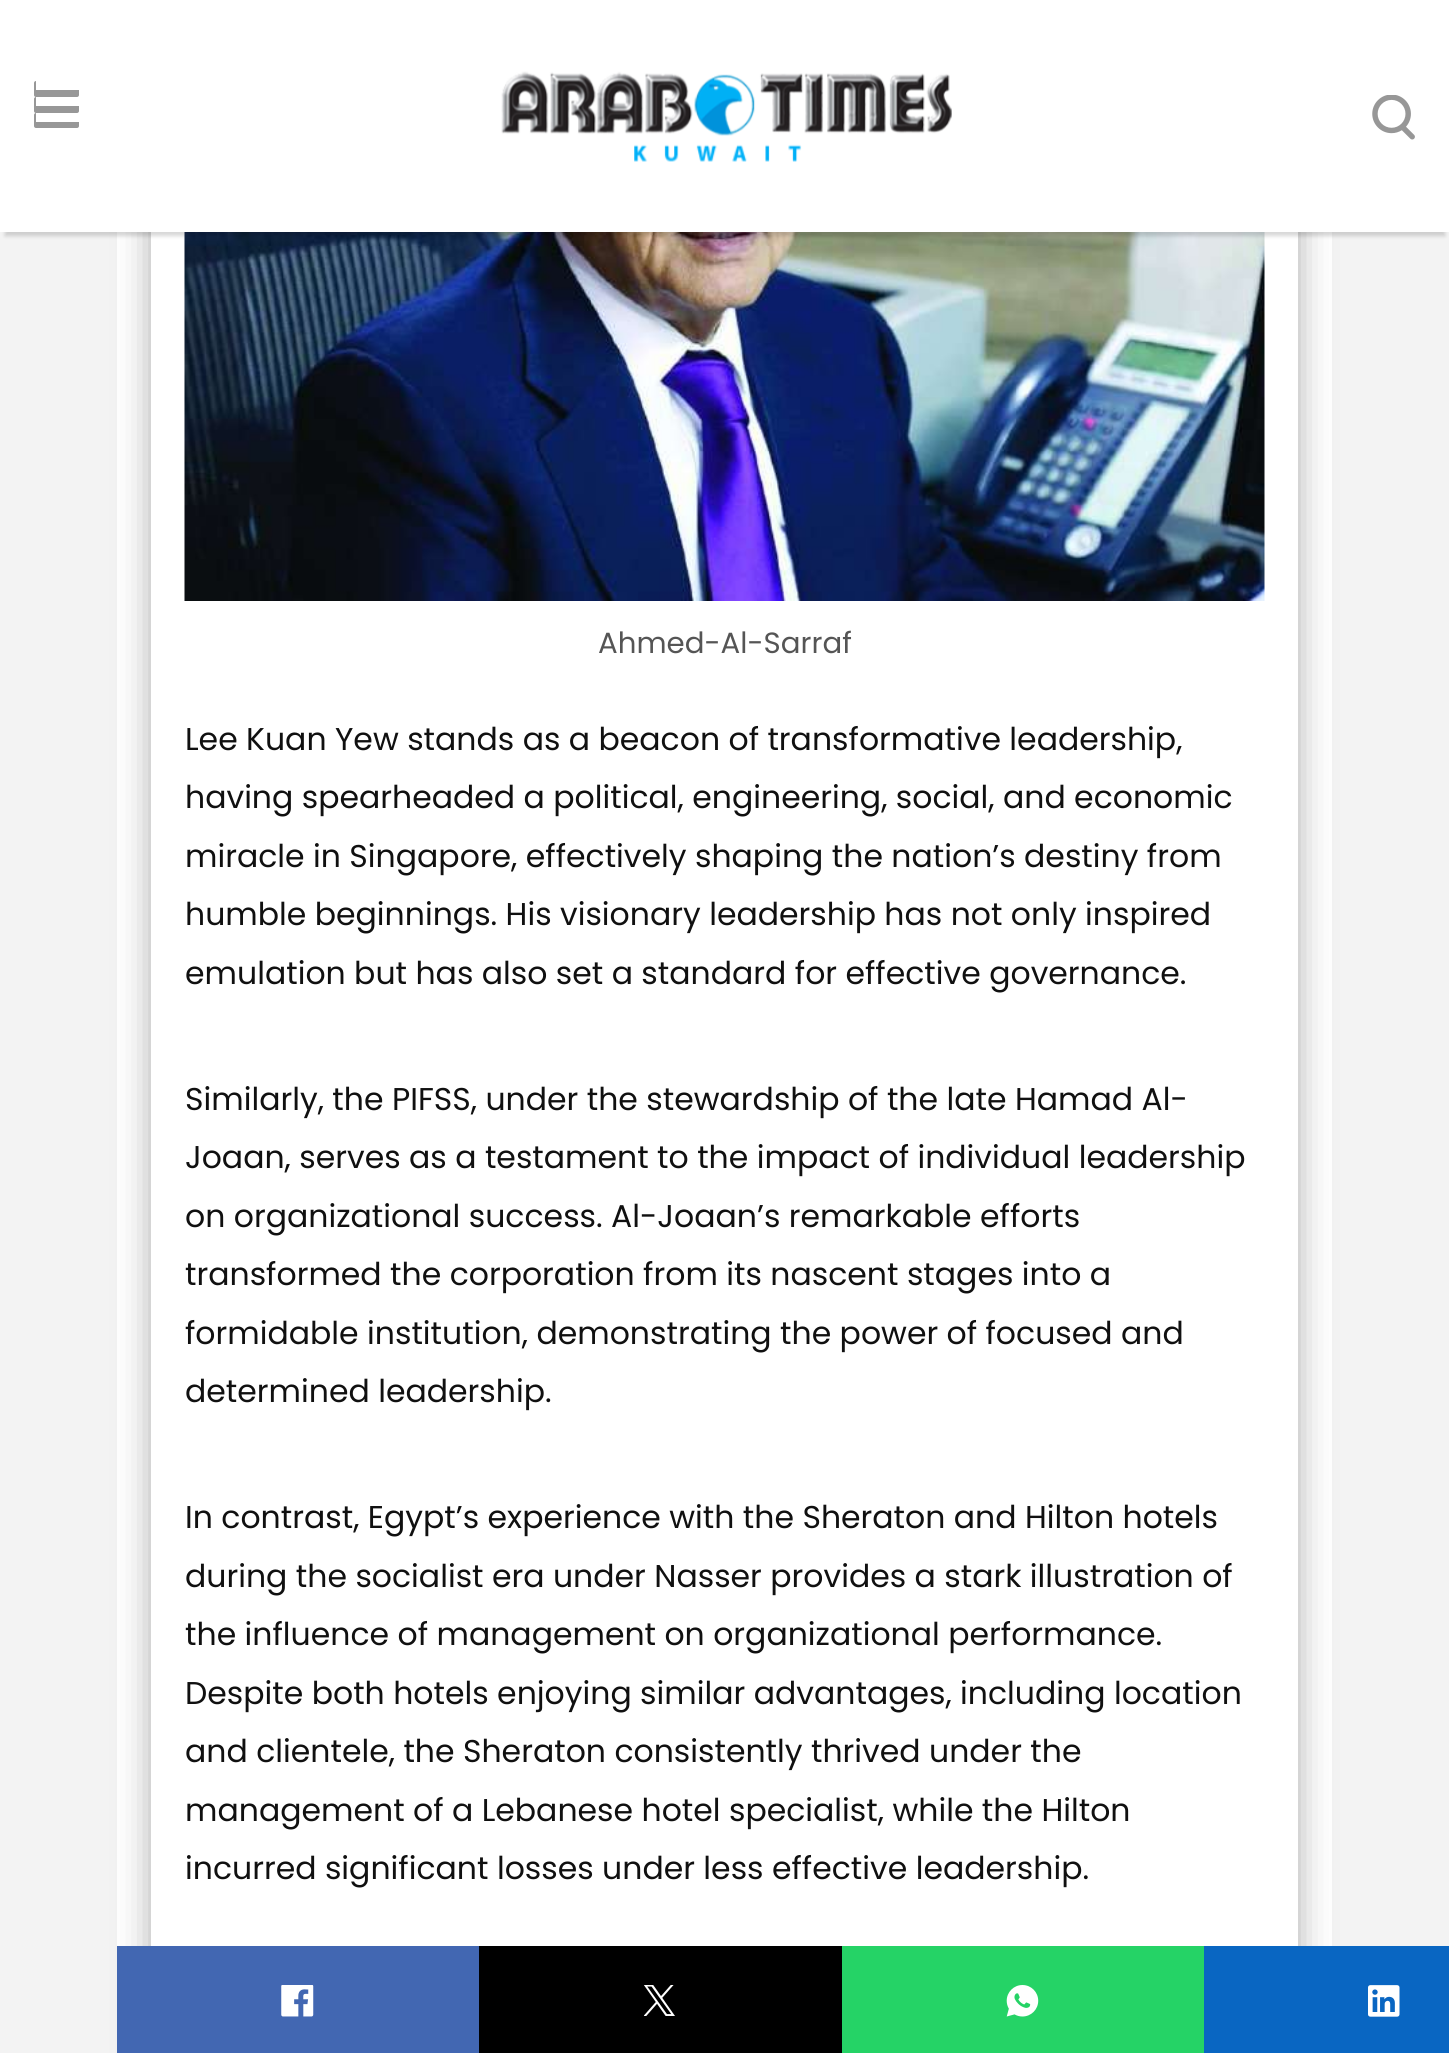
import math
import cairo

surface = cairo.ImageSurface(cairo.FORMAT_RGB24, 1449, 2053)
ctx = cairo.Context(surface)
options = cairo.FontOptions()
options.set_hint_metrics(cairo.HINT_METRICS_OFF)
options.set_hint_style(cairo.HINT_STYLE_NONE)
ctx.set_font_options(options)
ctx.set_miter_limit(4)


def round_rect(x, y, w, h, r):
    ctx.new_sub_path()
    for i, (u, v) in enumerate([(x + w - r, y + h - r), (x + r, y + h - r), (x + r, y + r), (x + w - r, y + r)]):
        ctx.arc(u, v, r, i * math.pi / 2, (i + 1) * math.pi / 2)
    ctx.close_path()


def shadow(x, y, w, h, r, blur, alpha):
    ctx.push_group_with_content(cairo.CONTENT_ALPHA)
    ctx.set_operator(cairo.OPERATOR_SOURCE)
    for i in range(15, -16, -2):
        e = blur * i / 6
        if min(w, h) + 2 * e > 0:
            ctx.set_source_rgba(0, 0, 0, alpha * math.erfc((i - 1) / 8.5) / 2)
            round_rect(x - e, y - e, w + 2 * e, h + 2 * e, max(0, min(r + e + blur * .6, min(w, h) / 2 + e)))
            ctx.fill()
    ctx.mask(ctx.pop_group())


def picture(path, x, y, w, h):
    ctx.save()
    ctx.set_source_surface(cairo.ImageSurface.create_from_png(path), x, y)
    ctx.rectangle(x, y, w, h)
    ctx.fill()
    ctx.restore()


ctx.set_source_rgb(0.953, 0.953, 0.953)
ctx.paint()
ctx.set_source_rgb(1, 1, 1)
ctx.rectangle(117, 232, 1215, 1714)
ctx.fill()
ctx.save()
ctx.set_fill_rule(cairo.FILL_RULE_EVEN_ODD)
ctx.new_path()
ctx.move_to(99, 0)
ctx.line_to(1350, 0)
ctx.line_to(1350, 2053)
ctx.line_to(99, 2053)
ctx.close_path()
ctx.move_to(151, -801)
ctx.line_to(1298, -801)
ctx.line_to(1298, 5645)
ctx.line_to(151, 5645)
ctx.close_path()
ctx.clip()
ctx.set_source_rgb(0.671, 0.671, 0.671)
shadow(151, -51, 1147, 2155, 0, 17, 1)
ctx.restore()
picture("img3.png", 184, 232, 1081, 369)
ctx.set_source_rgb(0, 0, 0)
shadow(5, 14, 1440, 222, 0, 2, 0.16)
ctx.set_source_rgb(1, 1, 1)
ctx.rectangle(0, 0, 1449, 232)
ctx.fill()
ctx.set_source_rgb(0.592, 0.592, 0.592)
round_rect(34, 81, 45, 16, 2)
ctx.fill()
ctx.set_source_rgb(1, 1, 1)
ctx.rectangle(36, 81, 43, 9)
ctx.fill()
ctx.set_source_rgb(0.592, 0.592, 0.592)
round_rect(34, 97, 45, 16, 2)
ctx.fill()
ctx.set_source_rgb(1, 1, 1)
ctx.rectangle(36, 97, 43, 9)
ctx.fill()
ctx.set_source_rgb(0.592, 0.592, 0.592)
round_rect(34, 113, 45, 15, 2)
ctx.fill()
ctx.set_source_rgb(1, 1, 1)
ctx.rectangle(36, 113, 43, 9)
ctx.fill()
picture("img1.png", 501, 71, 451, 91)
picture("img2.png", 1372, 95, 43, 45)
ctx.select_font_face("Poppins")
ctx.set_font_size(29.25)
ctx.set_source_rgb(0.333, 0.333, 0.333)
ctx.move_to(598, 653)
ctx.show_text("Ahmed-Al-Sarraf")
ctx.set_font_size(31.5)
ctx.set_source_rgb(0.063, 0.063, 0.063)
ctx.move_to(185, 750)
ctx.show_text("Lee Kuan Yew stands as a beacon of transformative leadership,")
ctx.move_to(185, 808)
ctx.show_text("having spearheaded a political, engineering, social, and economic")
ctx.move_to(185, 867)
ctx.show_text("miracle in Singapore, effectively shaping the nation’s destiny from")
ctx.move_to(185, 925)
ctx.show_text("humble beginnings. His visionary leadership has not only inspired")
ctx.move_to(185, 984)
ctx.show_text("emulation but has also set a standard for effective governance.")
ctx.move_to(185, 1110)
ctx.show_text("Similarly, the PIFSS, under the stewardship of the late Hamad Al-")
ctx.move_to(185, 1168)
ctx.show_text("Joaan, serves as a testament to the impact of individual leadership")
ctx.move_to(185, 1227)
ctx.show_text("on organizational success. Al-Joaan’s remarkable efforts")
ctx.move_to(185, 1285)
ctx.show_text("transformed the corporation from its nascent stages into a")
ctx.move_to(185, 1344)
ctx.show_text("formidable institution, demonstrating the power of focused and")
ctx.move_to(185, 1402)
ctx.show_text("determined leadership.")
ctx.move_to(185, 1528)
ctx.show_text("In contrast, Egypt’s experience with the Sheraton and Hilton hotels")
ctx.move_to(185, 1587)
ctx.show_text("during the socialist era under Nasser provides a stark illustration of")
ctx.move_to(185, 1645)
ctx.show_text("the influence of management on organizational performance.")
ctx.move_to(185, 1704)
ctx.show_text("Despite both hotels enjoying similar advantages, including location")
ctx.move_to(185, 1762)
ctx.show_text("and clientele, the Sheraton consistently thrived under the")
ctx.move_to(185, 1821)
ctx.show_text("management of a Lebanese hotel specialist, while the Hilton")
ctx.move_to(185, 1879)
ctx.show_text("incurred significant losses under less effective leadership.")
ctx.set_source_rgb(0.259, 0.404, 0.698)
ctx.rectangle(117, 1946, 362, 107)
ctx.fill()
picture("img4.png", 281, 1985, 33, 32)
ctx.set_source_rgb(0, 0, 0)
ctx.rectangle(479, 1946, 363, 107)
ctx.fill()
picture("img5.png", 644, 1985, 31, 31)
ctx.set_source_rgb(0.145, 0.827, 0.4)
ctx.rectangle(842, 1946, 362, 107)
ctx.fill()
picture("img6.png", 1006, 1985, 33, 32)
ctx.set_source_rgb(0.039, 0.4, 0.761)
ctx.rectangle(1204, 1946, 245, 107)
ctx.fill()
picture("img7.png", 1368, 1985, 32, 32)
surface.write_to_png("page.png")
